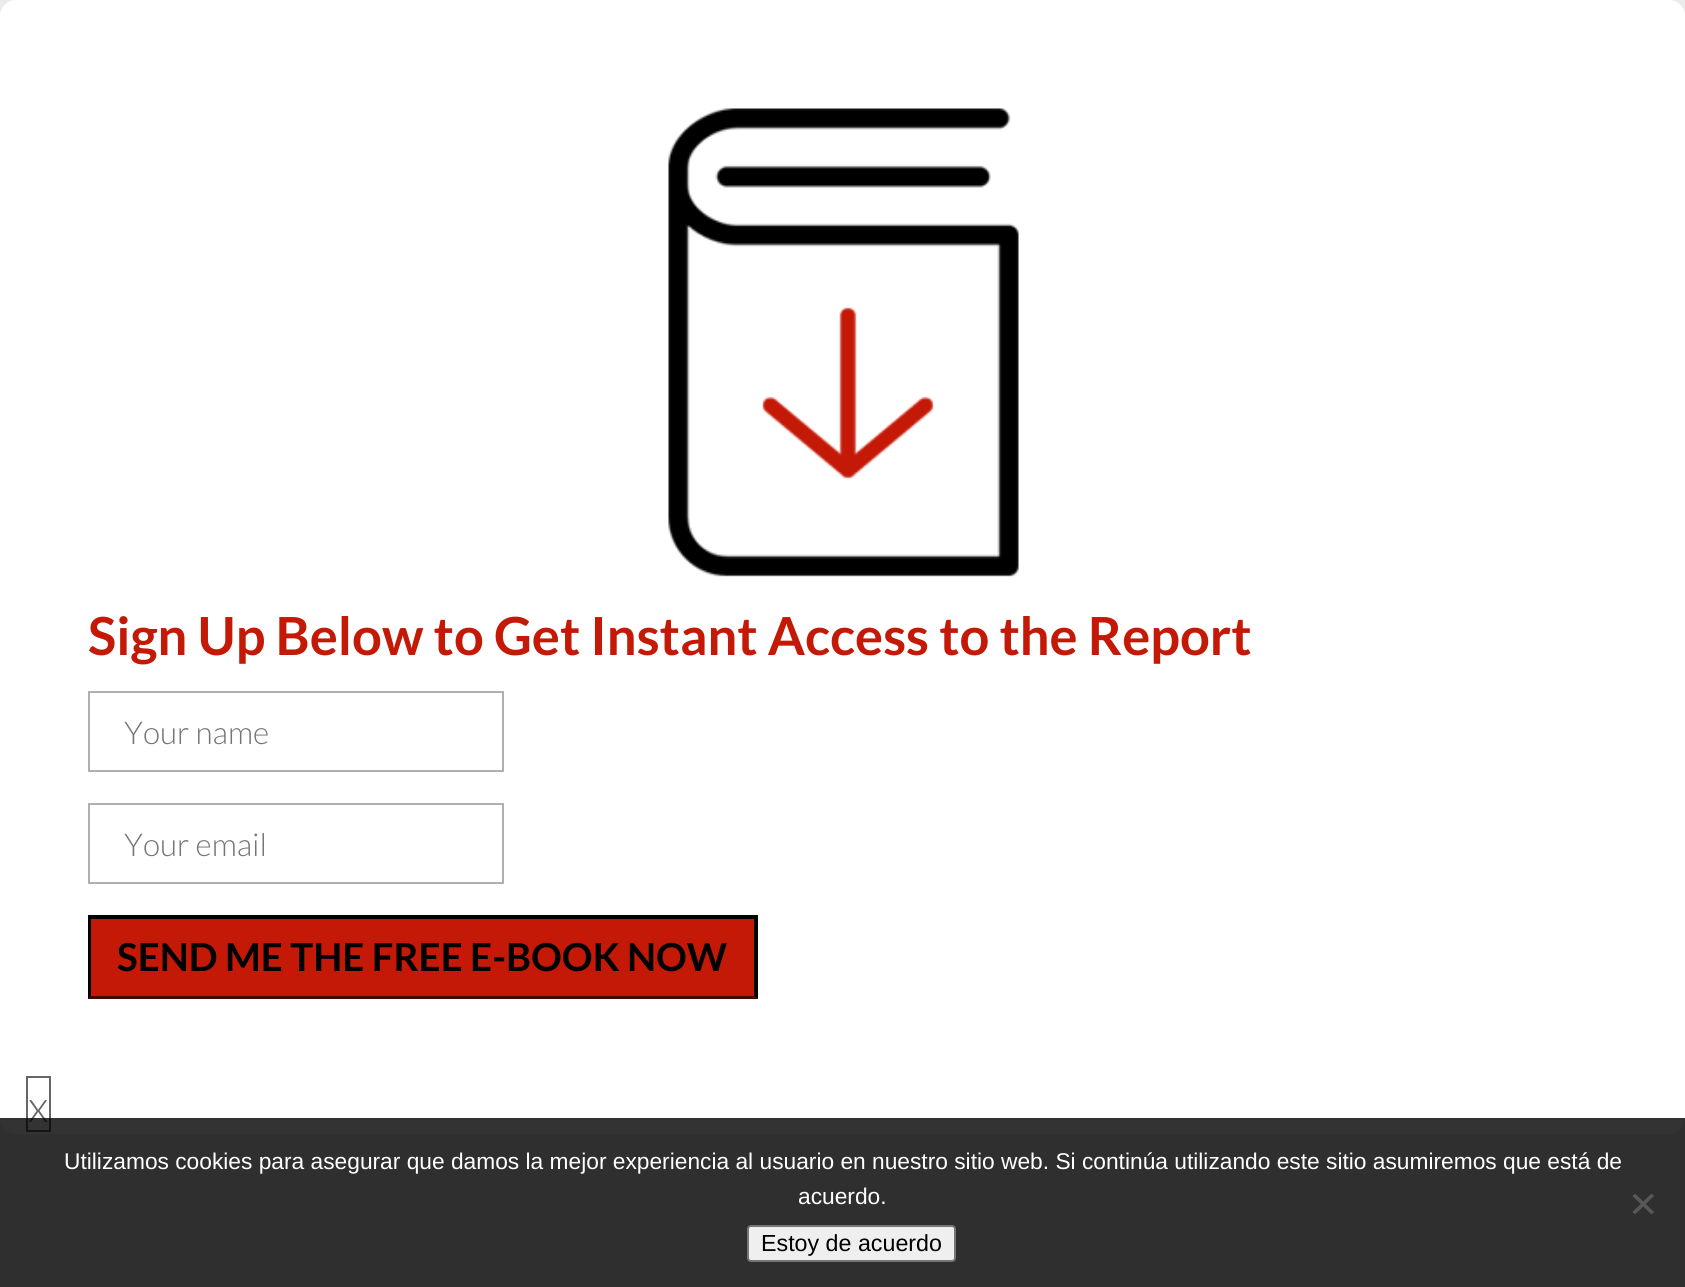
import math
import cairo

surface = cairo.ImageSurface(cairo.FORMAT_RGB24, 1685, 1287)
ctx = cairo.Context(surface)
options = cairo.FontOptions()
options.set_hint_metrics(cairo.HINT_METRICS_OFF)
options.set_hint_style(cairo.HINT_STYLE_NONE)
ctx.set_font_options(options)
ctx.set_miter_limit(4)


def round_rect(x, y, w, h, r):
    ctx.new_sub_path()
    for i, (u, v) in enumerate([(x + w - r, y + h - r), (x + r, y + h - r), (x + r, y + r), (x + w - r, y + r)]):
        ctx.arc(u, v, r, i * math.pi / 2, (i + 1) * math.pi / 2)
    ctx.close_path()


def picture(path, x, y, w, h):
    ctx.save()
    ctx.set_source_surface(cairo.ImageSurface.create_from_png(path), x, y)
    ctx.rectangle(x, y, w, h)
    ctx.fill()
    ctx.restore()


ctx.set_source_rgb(0.918, 0.918, 0.918)
ctx.paint()
ctx.set_source_rgb(1, 1, 1)
round_rect(0, 0, 1685, 1134, 16)
ctx.fill()
picture("img1.png", 668, 108, 351, 469)
ctx.select_font_face("Lato", cairo.FONT_SLANT_NORMAL, cairo.FONT_WEIGHT_BOLD)
ctx.set_font_size(52.5)
ctx.set_source_rgb(0.769, 0.098, 0.027)
ctx.move_to(88, 655)
ctx.show_text("Sign Up Below to Get Instant Access to the Report")
ctx.rectangle(89, 692, 414, 79)
ctx.set_source_rgb(0.686, 0.686, 0.686)
ctx.stroke()
ctx.select_font_face("Lato Light")
ctx.set_font_size(31.5)
ctx.set_source_rgb(0.459, 0.459, 0.459)
ctx.move_to(124, 744)
ctx.show_text("Your name")
ctx.rectangle(89, 804, 414, 79)
ctx.set_source_rgb(0.686, 0.686, 0.686)
ctx.stroke()
ctx.set_source_rgb(0.459, 0.459, 0.459)
ctx.move_to(124, 856)
ctx.show_text("Your email")
ctx.set_source_rgb(0.769, 0.098, 0.027)
ctx.rectangle(88, 919, 670, 80)
ctx.fill()
ctx.set_source_rgb(0, 0, 0)
ctx.rectangle(88, 915, 670, 4)
ctx.fill()
ctx.new_path()
ctx.move_to(758, 915)
ctx.line_to(758, 999)
ctx.line_to(754, 996)
ctx.line_to(754, 919)
ctx.close_path()
ctx.fill()
ctx.set_source_rgb(0.271, 0.035, 0.008)
ctx.new_path()
ctx.move_to(758, 999)
ctx.line_to(88, 999)
ctx.line_to(91, 996)
ctx.line_to(754, 996)
ctx.close_path()
ctx.fill()
ctx.set_source_rgb(0, 0, 0)
ctx.new_path()
ctx.move_to(88, 999)
ctx.line_to(88, 915)
ctx.line_to(91, 919)
ctx.line_to(91, 996)
ctx.close_path()
ctx.fill()
ctx.select_font_face("Lato", cairo.FONT_SLANT_NORMAL, cairo.FONT_WEIGHT_BOLD)
ctx.set_font_size(38.5)
ctx.move_to(117, 971)
ctx.show_text("SEND ME THE FREE E-BOOK NOW")
ctx.rectangle(27, 1077, 23, 54)
ctx.set_source_rgb(0.4, 0.4, 0.4)
ctx.stroke()
ctx.select_font_face("Lato Light")
ctx.set_font_size(44)
ctx.move_to(28, 1122)
ctx.show_text("x")
ctx.set_source_rgba(0, 0, 0, 0.8)
ctx.rectangle(0, 1118, 1685, 169)
ctx.fill()
ctx.select_font_face("Liberation Sans")
ctx.set_font_size(22.75)
ctx.set_source_rgb(1, 1, 1)
ctx.move_to(64, 1169)
ctx.show_text("Utilizamos cookies para asegurar que damos la mejor experiencia al usuario en nuestro sitio web. Si continúa utilizando este sitio asumiremos que está de")
ctx.move_to(798, 1204)
ctx.show_text("acuerdo.")
ctx.set_source_rgb(0.341, 0.341, 0.341)
ctx.new_path()
ctx.move_to(1651.5, 1193.5)
ctx.line_to(1654, 1196)
ctx.line_to(1635, 1214.5)
ctx.line_to(1632.5, 1212)
ctx.close_path()
ctx.fill()
ctx.new_path()
ctx.move_to(1632.5, 1196)
ctx.line_to(1635, 1193.5)
ctx.line_to(1654, 1212)
ctx.line_to(1651.5, 1214.5)
ctx.close_path()
ctx.fill()
ctx.set_source_rgb(0.937, 0.937, 0.937)
round_rect(748, 1226, 207, 35, 3)
ctx.fill_preserve()
ctx.set_source_rgb(0.463, 0.463, 0.463)
ctx.stroke()
ctx.set_font_size(23.25)
ctx.set_source_rgb(0, 0, 0)
ctx.move_to(761, 1251)
ctx.show_text("Estoy de acuerdo")
surface.write_to_png("page.png")
